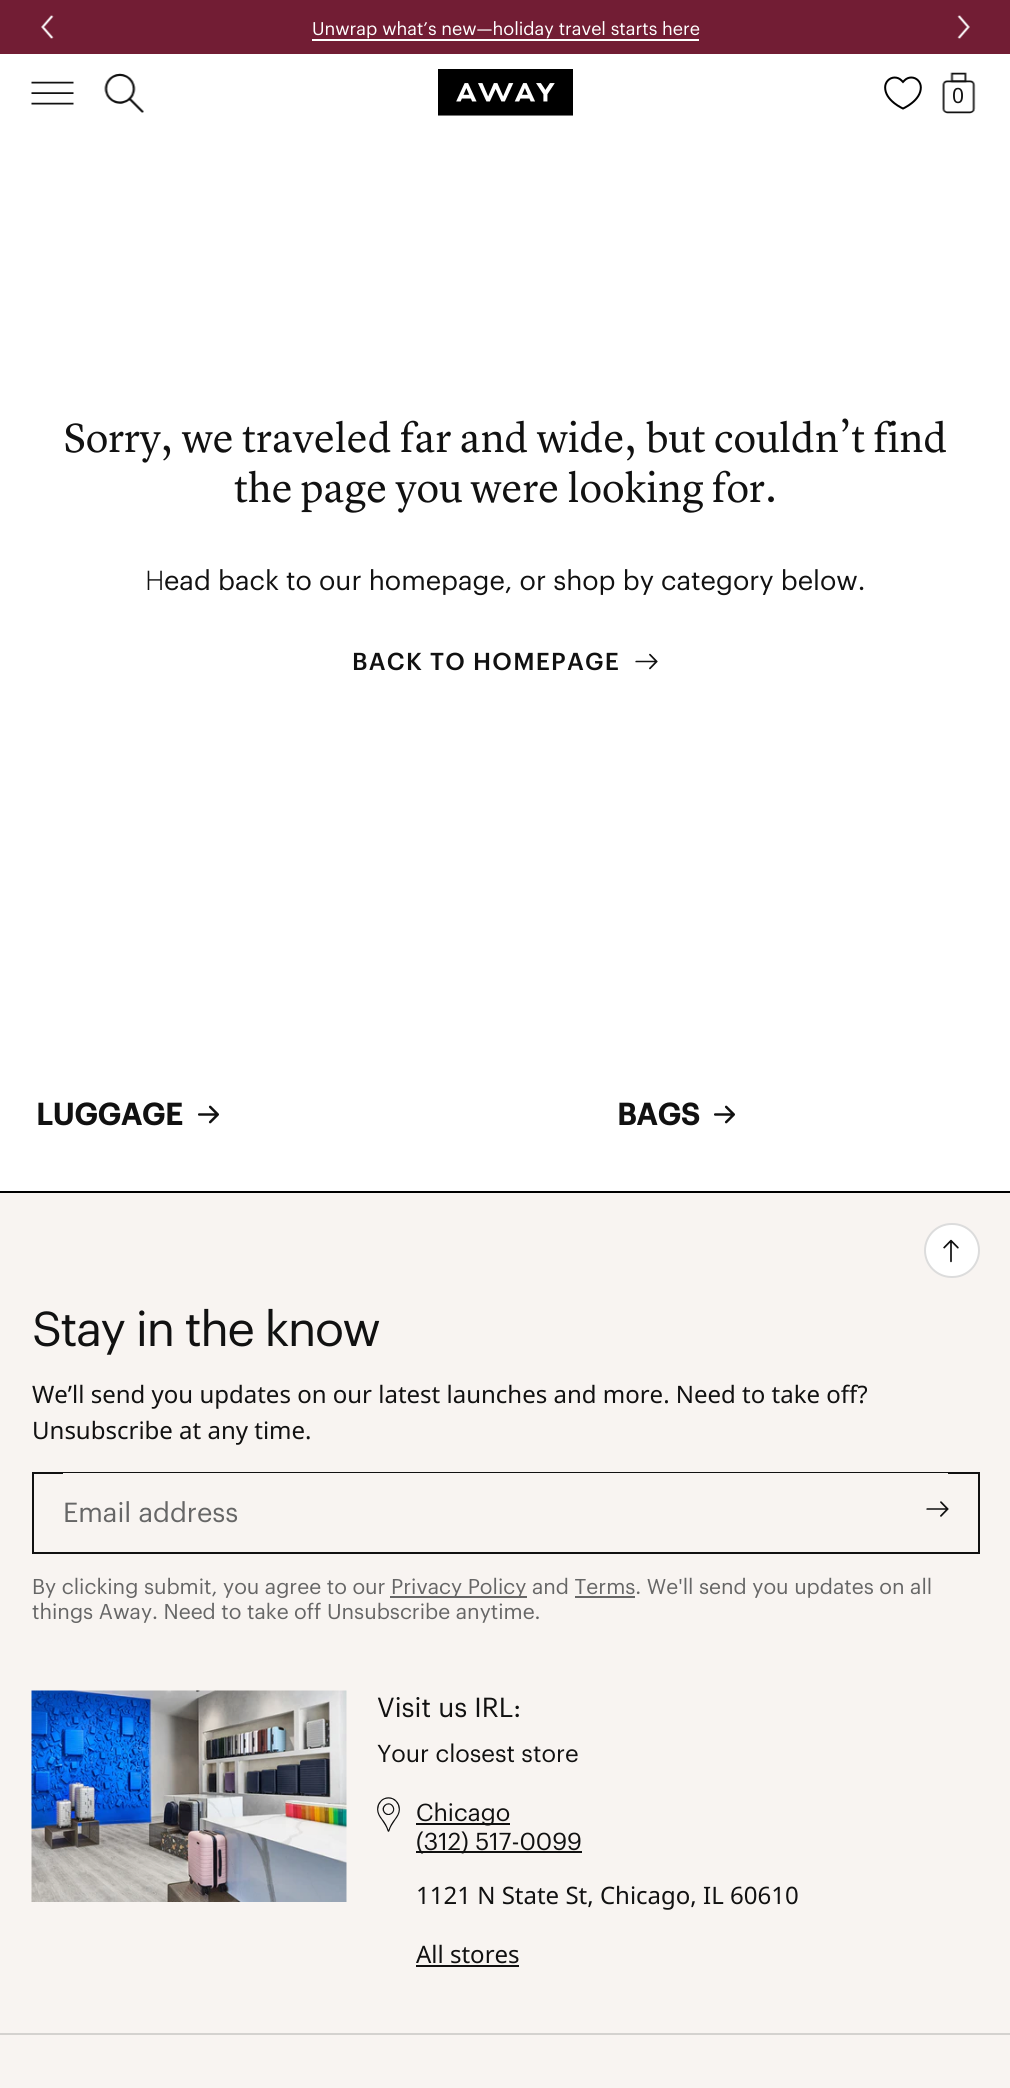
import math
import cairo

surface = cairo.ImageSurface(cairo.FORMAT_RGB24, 1010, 2088)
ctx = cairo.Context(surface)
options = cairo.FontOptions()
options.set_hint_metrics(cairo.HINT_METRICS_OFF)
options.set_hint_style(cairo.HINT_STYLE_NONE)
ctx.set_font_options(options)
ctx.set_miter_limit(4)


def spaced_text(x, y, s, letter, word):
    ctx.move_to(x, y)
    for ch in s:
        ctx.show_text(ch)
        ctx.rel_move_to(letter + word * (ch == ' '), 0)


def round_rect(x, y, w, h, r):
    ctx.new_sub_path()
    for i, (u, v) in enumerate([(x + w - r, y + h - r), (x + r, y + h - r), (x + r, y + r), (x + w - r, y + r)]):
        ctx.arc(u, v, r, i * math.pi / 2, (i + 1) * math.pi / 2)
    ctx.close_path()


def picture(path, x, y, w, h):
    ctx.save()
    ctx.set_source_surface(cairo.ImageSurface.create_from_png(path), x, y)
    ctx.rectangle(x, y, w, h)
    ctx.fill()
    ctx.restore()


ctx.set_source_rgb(1, 1, 1)
ctx.paint()
ctx.set_source_rgb(0.447, 0.114, 0.204)
ctx.rectangle(0, 0, 1010, 54)
ctx.fill()
picture("img1.png", 41, 15, 13, 24)
ctx.select_font_face("Graphik")
ctx.set_font_size(18)
ctx.set_source_rgb(1, 1, 1)
ctx.move_to(312, 35)
ctx.show_text("Unwrap what’s new—holiday travel starts here")
ctx.rectangle(312, 39, 387, 2)
ctx.fill()
picture("img2.png", 957, 15, 13, 24)
picture("img3.png", 31, 81, 43, 24)
picture("img4.png", 104, 73, 40, 40)
picture("img5.png", 438, 69, 135, 47)
picture("img6.png", 884, 76, 38, 34)
picture("img7.png", 942, 72, 34, 42)
ctx.select_font_face("Noto Sans")
ctx.set_font_size(21)
ctx.set_source_rgb(0.067, 0.067, 0.067)
ctx.move_to(952, 103)
ctx.show_text("0")
ctx.select_font_face("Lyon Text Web")
ctx.set_font_size(42)
ctx.move_to(64, 452)
ctx.show_text("Sorry, we traveled far and wide, but couldn’t find")
ctx.move_to(234, 502)
ctx.show_text("the page you were looking for.")
ctx.select_font_face("Noto Sans Light")
ctx.set_font_size(27)
ctx.move_to(145, 590)
ctx.show_text("H")
ctx.select_font_face("Graphik")
ctx.move_to(164, 590)
ctx.show_text("ead back to our homepage, or shop by category below.")
ctx.select_font_face("Graphik Medium")
ctx.set_font_size(24)
spaced_text(352, 670, "BACK TO HOMEPAGE", 1.25, 0)
picture("img8.png", 635, 653, 23, 17)
ctx.select_font_face("Graphik", cairo.FONT_SLANT_NORMAL, cairo.FONT_WEIGHT_BOLD)
ctx.set_font_size(30)
ctx.move_to(36, 1125)
ctx.show_text("LUGGAGE")
picture("img9.png", 198, 1105, 21, 19)
ctx.move_to(617, 1125)
ctx.show_text("BAGS")
picture("img9.png", 714, 1105, 21, 19)
ctx.set_source_rgb(0, 0, 0)
ctx.rectangle(0, 1191, 1010, 2)
ctx.fill()
ctx.set_source_rgb(0.969, 0.957, 0.945)
ctx.rectangle(0, 1193, 1010, 840)
ctx.fill()
ctx.set_source_rgb(1, 1, 1)
round_rect(924, 1223, 56, 55, 27.5)
ctx.fill()
round_rect(925, 1224, 54, 53, 26.5)
ctx.set_source_rgba(0, 0, 0, 0.14)
ctx.stroke()
picture("img10.png", 943, 1239, 16, 24)
ctx.select_font_face("Graphik")
ctx.set_font_size(48)
ctx.set_source_rgb(0.067, 0.067, 0.067)
spaced_text(32, 1346, "Stay in the know", -1.5, 0)
ctx.select_font_face("Noto Sans")
ctx.set_font_size(24)
ctx.move_to(32, 1403)
ctx.show_text("We’ll send you updates on our latest launches and more. Need to take off?")
ctx.move_to(32, 1439)
ctx.show_text("Unsubscribe at any time.")
ctx.rectangle(33, 1473, 946, 80)
ctx.stroke()
ctx.set_source_rgb(0.969, 0.957, 0.945)
ctx.rectangle(63, 1473, 885, 1)
ctx.fill()
ctx.select_font_face("Graphik")
ctx.set_font_size(27)
ctx.set_source_rgb(0.4, 0.4, 0.4)
ctx.move_to(63, 1522)
ctx.show_text("Email address")
picture("img11.png", 926, 1501, 23, 16)
ctx.set_font_size(21)
ctx.move_to(32, 1594)
ctx.show_text("By clicking submit, you agree to our")
ctx.rectangle(390, 1596, 137, 2)
ctx.fill()
ctx.move_to(391, 1594)
ctx.show_text("Privacy Policy and Terms. We'll send you updates on all")
ctx.rectangle(575, 1596, 60, 2)
ctx.fill()
ctx.move_to(32, 1619)
ctx.show_text("things Away. Need to take off Unsubscribe anytime.")
picture("img12.png", 31, 1690, 316, 212)
ctx.set_font_size(27)
ctx.set_source_rgb(0.067, 0.067, 0.067)
ctx.move_to(377, 1717)
ctx.show_text("Visit us IRL:")
ctx.set_font_size(24)
ctx.move_to(377, 1762)
ctx.show_text("Your closest store")
picture("img13.png", 377, 1797, 23, 35)
ctx.rectangle(416, 1823, 94, 2)
ctx.fill()
ctx.move_to(416, 1821)
ctx.show_text("Chicago")
ctx.rectangle(416, 1851, 166, 2)
ctx.fill()
ctx.move_to(416, 1850)
ctx.show_text("(312) 517-0099")
ctx.select_font_face("Noto Sans")
ctx.move_to(416, 1904)
ctx.show_text("1121 N State St, Chicago, IL 60610")
ctx.move_to(416, 1963)
ctx.show_text("All stores")
ctx.rectangle(416, 1965, 103, 2)
ctx.fill()
ctx.set_source_rgb(0.969, 0.957, 0.945)
ctx.rectangle(0, 2035, 1010, 53)
ctx.fill()
ctx.set_source_rgb(0.831, 0.824, 0.812)
ctx.rectangle(0, 2033, 1010, 2)
ctx.fill()
surface.write_to_png("page.png")
